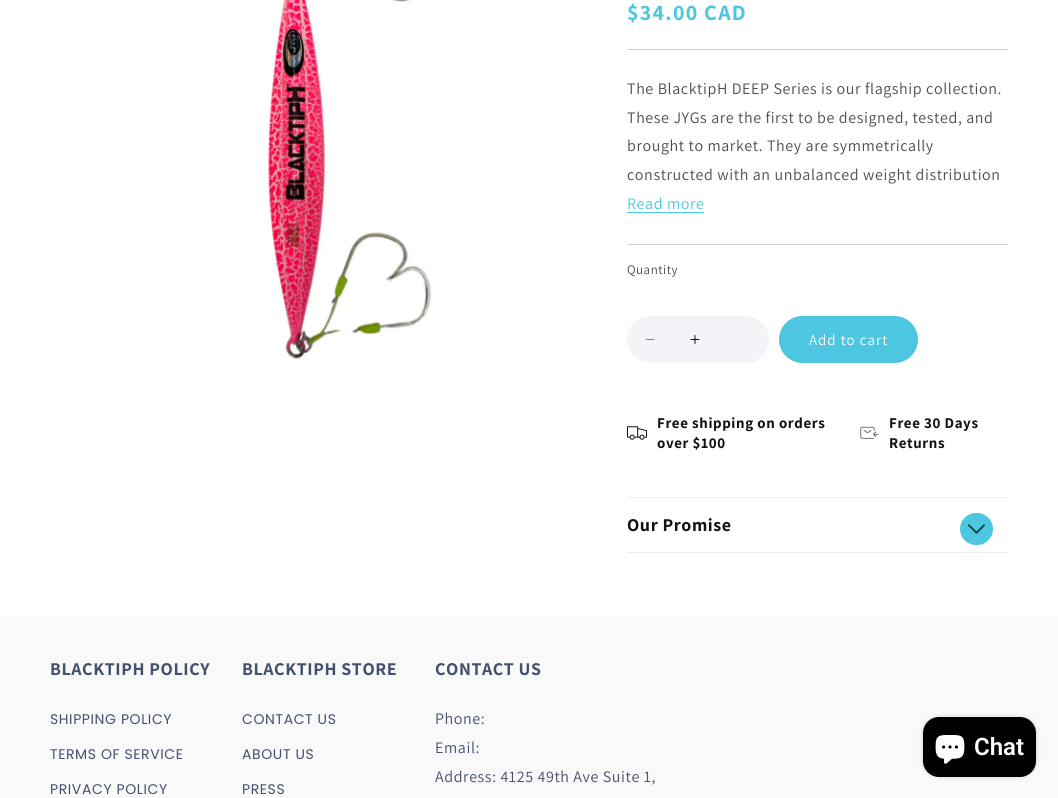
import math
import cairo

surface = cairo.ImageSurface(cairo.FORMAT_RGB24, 1058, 798)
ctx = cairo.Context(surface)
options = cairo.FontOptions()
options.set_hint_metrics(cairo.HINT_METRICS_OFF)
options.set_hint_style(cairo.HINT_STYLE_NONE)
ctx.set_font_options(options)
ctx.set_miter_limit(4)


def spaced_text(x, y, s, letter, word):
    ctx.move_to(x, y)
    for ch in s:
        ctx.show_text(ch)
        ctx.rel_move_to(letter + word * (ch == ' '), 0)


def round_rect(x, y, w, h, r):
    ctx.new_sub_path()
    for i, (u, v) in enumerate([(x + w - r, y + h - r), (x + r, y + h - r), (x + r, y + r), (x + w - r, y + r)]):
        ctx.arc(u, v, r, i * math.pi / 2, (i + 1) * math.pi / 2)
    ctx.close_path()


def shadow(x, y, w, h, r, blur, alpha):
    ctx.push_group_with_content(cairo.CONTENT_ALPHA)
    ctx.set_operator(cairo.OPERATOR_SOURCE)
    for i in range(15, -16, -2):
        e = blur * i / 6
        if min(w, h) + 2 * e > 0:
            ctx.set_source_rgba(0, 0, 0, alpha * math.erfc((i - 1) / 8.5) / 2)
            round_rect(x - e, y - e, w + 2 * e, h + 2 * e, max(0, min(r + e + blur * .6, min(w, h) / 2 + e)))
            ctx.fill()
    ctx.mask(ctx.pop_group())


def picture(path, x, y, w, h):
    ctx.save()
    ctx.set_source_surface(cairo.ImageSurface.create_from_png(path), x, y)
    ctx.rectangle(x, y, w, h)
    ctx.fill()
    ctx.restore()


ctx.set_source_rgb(1, 1, 1)
ctx.paint()
picture("img1.png", 268, 0, 164, 359)
ctx.select_font_face("Assistant", cairo.FONT_SLANT_NORMAL, cairo.FONT_WEIGHT_BOLD)
ctx.set_font_size(22)
ctx.set_source_rgb(0.302, 0.776, 0.882)
spaced_text(627, 20, "$34.00 CAD", 1.25, 0)
ctx.set_source_rgb(0.816, 0.816, 0.816)
ctx.rectangle(627, 49, 381, 1)
ctx.fill()
ctx.select_font_face("Assistant")
ctx.set_font_size(16)
ctx.set_source_rgb(0.302, 0.302, 0.302)
spaced_text(627, 94, "The BlacktipH DEEP Series is our flagship collection.", 0.6, 0)
spaced_text(627, 123, "These JYGs are the first to be designed, tested, and", 0.6, 0)
spaced_text(627, 151, "brought to market. They are symmetrically", 0.6, 0)
spaced_text(627, 180, "constructed with an unbalanced weight distribution", 0.6, 0)
ctx.set_source_rgb(0.302, 0.776, 0.882)
spaced_text(627, 209, "Read more", 0.6, 0)
ctx.rectangle(627, 212, 77, 1)
ctx.fill()
ctx.set_source_rgb(0.816, 0.816, 0.816)
ctx.rectangle(627, 244, 381, 1)
ctx.fill()
ctx.set_font_size(13)
ctx.set_source_rgb(0.302, 0.302, 0.302)
spaced_text(627, 274, "Quantity", 0.5, 0)
ctx.set_source_rgb(0.949, 0.957, 0.969)
round_rect(627, 316, 142, 47, 23.5)
ctx.fill()
picture("img2.png", 645, 339, 10, 1)
picture("img3.png", 690, 335, 10, 9)
ctx.set_source_rgb(0.302, 0.776, 0.882)
round_rect(779, 316, 139, 47, 23.5)
ctx.fill()
ctx.set_font_size(15)
ctx.set_source_rgb(1, 1, 1)
spaced_text(809, 345, "Add to cart", 1, 0)
picture("img4.png", 627, 426, 20, 14)
ctx.select_font_face("Assistant", cairo.FONT_SLANT_NORMAL, cairo.FONT_WEIGHT_BOLD)
ctx.set_source_rgb(0.071, 0.071, 0.071)
spaced_text(657, 428, "Free shipping on orders", 0.6, 0)
spaced_text(657, 448, "over $100", 0.6, 0)
picture("img5.png", 860, 426, 19, 13)
spaced_text(889, 428, "Free 30 Days", 0.6, 0)
spaced_text(889, 448, "Returns", 0.6, 0)
ctx.set_source_rgb(0.925, 0.925, 0.925)
ctx.rectangle(627, 497, 381, 1)
ctx.fill()
ctx.rectangle(627, 552, 381, 1)
ctx.fill()
ctx.set_font_size(18)
ctx.set_source_rgb(0.071, 0.071, 0.071)
spaced_text(627, 531, "Our Promise", 0.6, 0)
ctx.set_source_rgb(0.302, 0.776, 0.882)
round_rect(960, 513, 33, 32, 16)
ctx.fill()
picture("img6.png", 968, 524, 17, 10)
ctx.set_source_rgb(0.976, 0.976, 0.976)
ctx.rectangle(0, 617, 1058, 181)
ctx.fill()
ctx.set_source_rgb(0.271, 0.31, 0.431)
spaced_text(50, 675, "BLACKTIPH POLICY", 0.6, 0)
ctx.select_font_face("Poppins")
ctx.set_font_size(14)
spaced_text(50, 724, "SHIPPING POLICY", 0.6, 0)
spaced_text(50, 759, "TERMS OF SERVICE", 0.6, 0)
spaced_text(50, 794, "PRIVACY POLICY", 0.6, 0)
ctx.select_font_face("Assistant", cairo.FONT_SLANT_NORMAL, cairo.FONT_WEIGHT_BOLD)
ctx.set_font_size(18)
spaced_text(242, 675, "BLACKTIPH STORE", 0.6, 0)
ctx.select_font_face("Poppins")
ctx.set_font_size(14)
spaced_text(242, 724, "CONTACT US", 0.6, 0)
spaced_text(242, 759, "ABOUT US", 0.6, 0)
spaced_text(242, 794, "PRESS", 0.6, 0)
ctx.select_font_face("Assistant", cairo.FONT_SLANT_NORMAL, cairo.FONT_WEIGHT_BOLD)
ctx.set_font_size(18)
spaced_text(435, 675, "CONTACT US", 0.6, 0)
ctx.select_font_face("Assistant")
ctx.set_font_size(16)
spaced_text(435, 724, "Phone:", 0.6, 0)
spaced_text(435, 753, "Email:", 0.6, 0)
spaced_text(435, 782, "Address: 4125 49th Ave Suite 1,", 0.6, 0)
ctx.set_source_rgb(0, 0, 0)
shadow(923, 717, 113, 60, 16, 2.5, 0.15)
ctx.set_source_rgb(0, 0, 0)
round_rect(923, 717, 113, 60, 16)
ctx.fill()
picture("img7.png", 935, 735, 30, 29)
ctx.select_font_face("Roboto SemiBold")
ctx.set_font_size(24)
ctx.set_source_rgb(1, 1, 1)
ctx.move_to(974, 755)
ctx.show_text("Chat")
surface.write_to_png("page.png")
